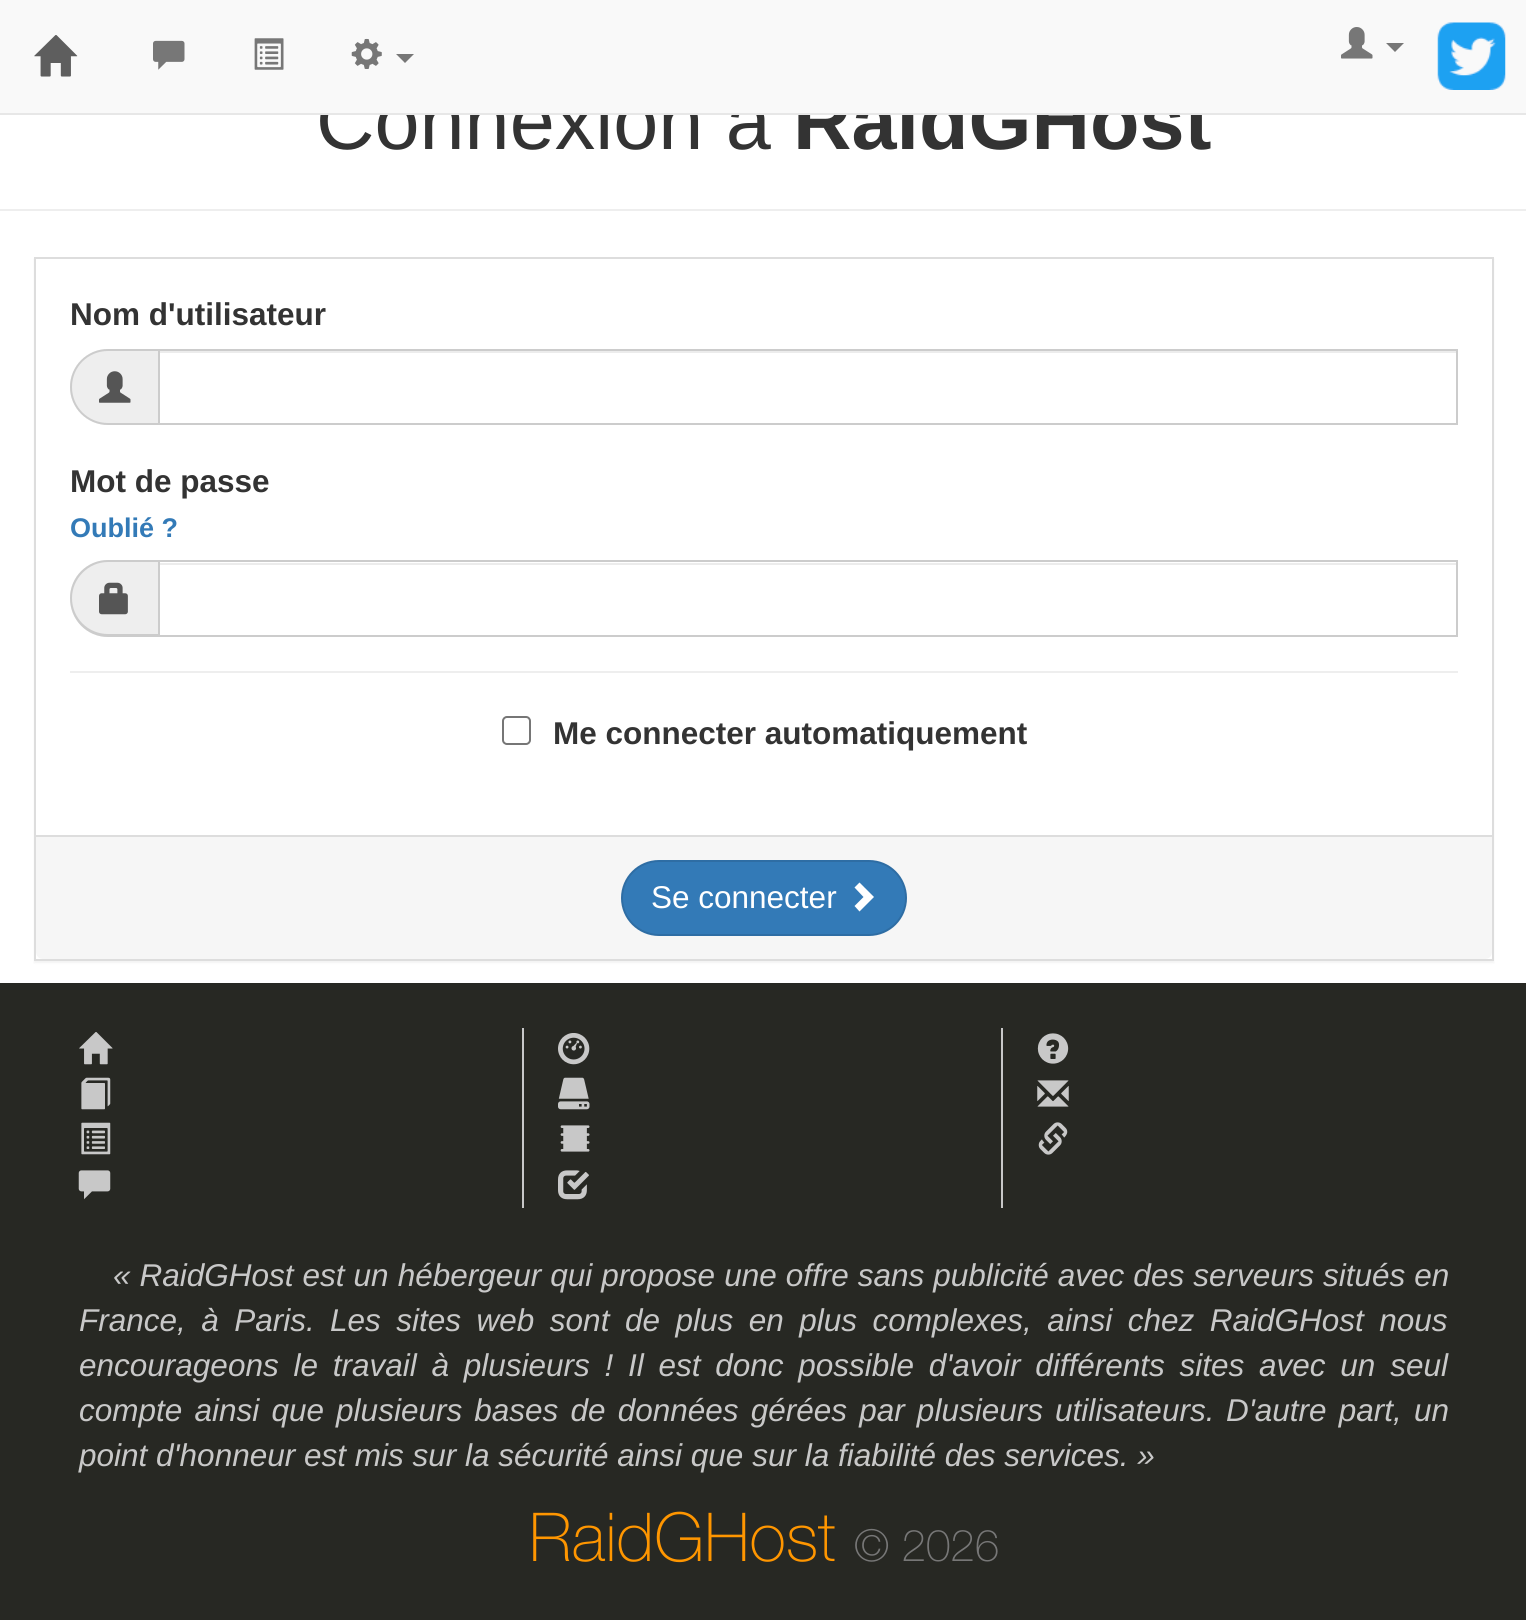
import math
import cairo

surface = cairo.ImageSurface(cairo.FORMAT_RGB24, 1526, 1620)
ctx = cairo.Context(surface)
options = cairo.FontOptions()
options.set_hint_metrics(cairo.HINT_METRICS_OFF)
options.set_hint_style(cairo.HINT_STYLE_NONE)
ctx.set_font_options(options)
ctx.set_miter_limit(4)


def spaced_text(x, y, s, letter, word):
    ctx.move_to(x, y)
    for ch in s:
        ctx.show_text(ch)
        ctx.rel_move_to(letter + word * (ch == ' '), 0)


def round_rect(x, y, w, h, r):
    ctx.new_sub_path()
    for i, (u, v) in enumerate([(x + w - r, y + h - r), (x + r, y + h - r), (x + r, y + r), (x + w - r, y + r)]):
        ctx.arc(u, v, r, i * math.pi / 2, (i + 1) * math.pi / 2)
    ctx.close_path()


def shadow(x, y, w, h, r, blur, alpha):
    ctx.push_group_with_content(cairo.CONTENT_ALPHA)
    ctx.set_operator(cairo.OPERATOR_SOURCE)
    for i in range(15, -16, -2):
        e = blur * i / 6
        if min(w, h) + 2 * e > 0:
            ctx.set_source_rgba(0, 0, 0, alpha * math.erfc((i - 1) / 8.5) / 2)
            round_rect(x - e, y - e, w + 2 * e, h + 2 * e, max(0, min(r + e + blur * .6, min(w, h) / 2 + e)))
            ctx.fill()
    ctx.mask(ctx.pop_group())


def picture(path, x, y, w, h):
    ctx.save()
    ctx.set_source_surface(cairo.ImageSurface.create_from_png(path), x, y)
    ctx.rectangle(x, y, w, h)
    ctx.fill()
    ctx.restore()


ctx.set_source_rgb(1, 1, 1)
ctx.paint()
ctx.select_font_face("Liberation Sans")
ctx.set_font_size(81)
ctx.set_source_rgb(0.2, 0.2, 0.2)
ctx.move_to(316, 149)
ctx.show_text("Connexion à")
ctx.select_font_face("Liberation Sans", cairo.FONT_SLANT_NORMAL, cairo.FONT_WEIGHT_BOLD)
ctx.move_to(793, 149)
ctx.show_text("RaidGHost")
ctx.set_source_rgb(0.973, 0.973, 0.973)
ctx.rectangle(0, 0, 1526, 113)
ctx.fill()
ctx.set_source_rgb(0.906, 0.906, 0.906)
ctx.rectangle(0, 113, 1526, 2)
ctx.fill()
picture("img1.png", 34, 35, 44, 42)
picture("img2.png", 153, 40, 32, 30)
picture("img3.png", 254, 38, 30, 32)
picture("img4.png", 351, 38, 31, 31)
ctx.set_source_rgb(0.467, 0.467, 0.467)
ctx.new_path()
ctx.move_to(396, 54)
ctx.line_to(414, 54)
ctx.line_to(405, 63)
ctx.close_path()
ctx.fill()
picture("img5.png", 1341, 27, 32, 32)
ctx.new_path()
ctx.move_to(1386, 43)
ctx.line_to(1404, 43)
ctx.line_to(1395, 52)
ctx.close_path()
ctx.fill()
picture("img6.png", 1437, 22, 69, 68)
ctx.set_source_rgb(0.933, 0.933, 0.933)
ctx.rectangle(0, 209, 1526, 2)
ctx.fill()
ctx.set_source_rgb(0, 0, 0)
shadow(34, 259, 1460, 704, 0, 1, 0.05)
ctx.set_source_rgb(1, 1, 1)
ctx.rectangle(35, 258, 1458, 702)
ctx.fill_preserve()
ctx.set_source_rgb(0.867, 0.867, 0.867)
ctx.stroke()
ctx.set_font_size(31.5)
ctx.set_source_rgb(0.2, 0.2, 0.2)
ctx.move_to(70, 325)
ctx.show_text("Nom d'utilisateur")
ctx.set_source_rgb(0.933, 0.933, 0.933)
ctx.new_path()
ctx.move_to(108, 349)
ctx.line_to(158, 349)
ctx.line_to(158, 425)
ctx.line_to(108, 425)
ctx.curve_to(87, 425, 70, 408, 70, 387)
ctx.curve_to(70, 366, 87, 349, 108, 349)
ctx.close_path()
ctx.fill()
ctx.set_source_rgb(0.8, 0.8, 0.8)
ctx.set_fill_rule(cairo.FILL_RULE_EVEN_ODD)
ctx.new_path()
ctx.move_to(108, 349)
ctx.line_to(158, 349)
ctx.line_to(158, 425)
ctx.line_to(108, 425)
ctx.curve_to(87, 425, 70, 408, 70, 387)
ctx.curve_to(70, 366, 87, 349, 108, 349)
ctx.close_path()
ctx.move_to(108, 351)
ctx.line_to(158, 351)
ctx.line_to(158, 423)
ctx.line_to(108, 423)
ctx.curve_to(88, 423, 72, 407, 72, 387)
ctx.curve_to(72, 367, 88, 351, 108, 351)
ctx.close_path()
ctx.fill()
picture("img7.png", 99, 371, 32, 32)
ctx.set_source_rgb(0.925, 0.925, 0.925)
ctx.rectangle(160, 351, 1296, 2)
ctx.fill()
ctx.rectangle(159, 350, 1298, 74)
ctx.set_source_rgb(0.8, 0.8, 0.8)
ctx.stroke()
ctx.set_source_rgb(0.2, 0.2, 0.2)
ctx.move_to(70, 492)
ctx.show_text("Mot de passe")
ctx.set_font_size(27)
ctx.set_source_rgb(0.2, 0.478, 0.718)
ctx.move_to(70, 537)
ctx.show_text("Oublié ?")
ctx.set_source_rgb(0.933, 0.933, 0.933)
ctx.new_path()
ctx.move_to(108.5, 560)
ctx.line_to(158, 560)
ctx.line_to(158, 637)
ctx.line_to(108.5, 637)
ctx.curve_to(87, 637, 70, 620, 70, 598.5)
ctx.curve_to(70, 577, 87, 560, 108.5, 560)
ctx.close_path()
ctx.fill()
ctx.set_source_rgb(0.8, 0.8, 0.8)
ctx.new_path()
ctx.move_to(108, 560)
ctx.line_to(158, 560)
ctx.line_to(158, 637)
ctx.line_to(108, 637)
ctx.curve_to(87, 637, 70, 620, 70, 598)
ctx.curve_to(70, 577, 87, 560, 108, 560)
ctx.close_path()
ctx.move_to(108, 562)
ctx.line_to(158, 562)
ctx.line_to(158, 634)
ctx.line_to(108, 634)
ctx.curve_to(88, 634, 72, 618, 72, 598)
ctx.curve_to(72, 579, 88, 562, 108, 562)
ctx.close_path()
ctx.fill()
picture("img8.png", 99, 582, 29, 33)
ctx.set_source_rgb(0.925, 0.925, 0.925)
ctx.rectangle(160, 563, 1296, 2)
ctx.fill()
ctx.rectangle(159, 561, 1298, 75)
ctx.set_source_rgb(0.8, 0.8, 0.8)
ctx.stroke()
ctx.set_source_rgb(0.933, 0.933, 0.933)
ctx.rectangle(70, 671, 1388, 2)
ctx.fill()
round_rect(503, 717, 27, 27, 4)
ctx.set_source_rgb(0.463, 0.463, 0.463)
ctx.stroke()
ctx.set_font_size(31.5)
ctx.set_source_rgb(0.2, 0.2, 0.2)
ctx.move_to(553, 744)
ctx.show_text("Me connecter automatiquement")
ctx.set_source_rgb(0.961, 0.961, 0.961)
ctx.new_path()
ctx.move_to(36, 835)
ctx.line_to(1492, 835)
ctx.line_to(1492, 952)
ctx.curve_to(1492, 956, 1489, 959, 1485, 959)
ctx.line_to(43, 959)
ctx.curve_to(39, 959, 36, 956, 36, 952)
ctx.close_path()
ctx.fill()
ctx.set_source_rgb(0.867, 0.867, 0.867)
ctx.rectangle(36, 835, 1456, 2)
ctx.fill()
ctx.set_source_rgb(0.2, 0.478, 0.718)
round_rect(622, 861, 284, 74, 37)
ctx.fill_preserve()
ctx.set_source_rgb(0.18, 0.427, 0.643)
ctx.stroke()
ctx.select_font_face("Liberation Sans")
ctx.set_source_rgb(1, 1, 1)
ctx.move_to(651, 908)
ctx.show_text("Se connecter")
ctx.set_fill_rule(cairo.FILL_RULE_WINDING)
ctx.new_path()
ctx.move_to(874, 897)
ctx.line_to(859.5, 911.5)
ctx.line_to(854.5, 906)
ctx.line_to(863.5, 897)
ctx.line_to(854.5, 887.5)
ctx.line_to(859.5, 882.5)
ctx.close_path()
ctx.fill()
ctx.set_source_rgb(0.153, 0.157, 0.137)
ctx.rectangle(0, 983, 1526, 637)
ctx.fill()
ctx.set_source_rgb(0.784, 0.784, 0.784)
ctx.rectangle(522, 1028, 2, 180)
ctx.fill()
picture("img9.png", 79, 1032, 34, 33)
picture("img10.png", 81, 1077, 30, 33)
picture("img11.png", 81, 1122, 30, 33)
picture("img12.png", 78, 1170, 33, 30)
ctx.rectangle(1001, 1028, 2, 180)
ctx.fill()
picture("img13.png", 558, 1033, 32, 32)
picture("img14.png", 558, 1077, 32, 33)
picture("img15.png", 560, 1125, 30, 27)
picture("img16.png", 558, 1170, 31, 30)
picture("img17.png", 1037, 1033, 32, 31)
picture("img18.png", 1037, 1080, 32, 27)
picture("img19.png", 1038, 1122, 30, 33)
ctx.select_font_face("Liberation Sans", cairo.FONT_SLANT_ITALIC)
spaced_text(113, 1286, "« RaidGHost est un hébergeur qui propose une offre sans publicité avec des serveurs situés en", 0, 0.25)
spaced_text(79, 1331, "France, à Paris.", 0, 6.75)
spaced_text(330, 1331, "Les sites web sont de plus en plus complexes, ainsi chez RaidGHost nous", 0, 6.75)
spaced_text(79, 1376, "encourageons le travail à plusieurs !", 0, 6)
spaced_text(628, 1376, "Il est donc possible d'avoir différents sites avec un seul", 0, 6)
spaced_text(79, 1421, "compte ainsi que plusieurs bases de données gérées par plusieurs utilisateurs.", 0, 3.4)
spaced_text(1226, 1421, "D'autre part, un", 0, 3.4)
ctx.move_to(79, 1466)
ctx.show_text("point d'honneur est mis sur la sécurité ainsi que sur la fiabilité des services. »")
ctx.select_font_face("Helvetica Neue Thin")
ctx.set_font_size(67.5)
ctx.set_source_rgb(1, 0.588, 0)
ctx.move_to(529, 1561)
ctx.show_text("RaidGHost")
ctx.set_font_size(44)
ctx.set_source_rgb(0.467, 0.467, 0.467)
ctx.move_to(854, 1561)
ctx.show_text("© 2026")
surface.write_to_png("page.png")
